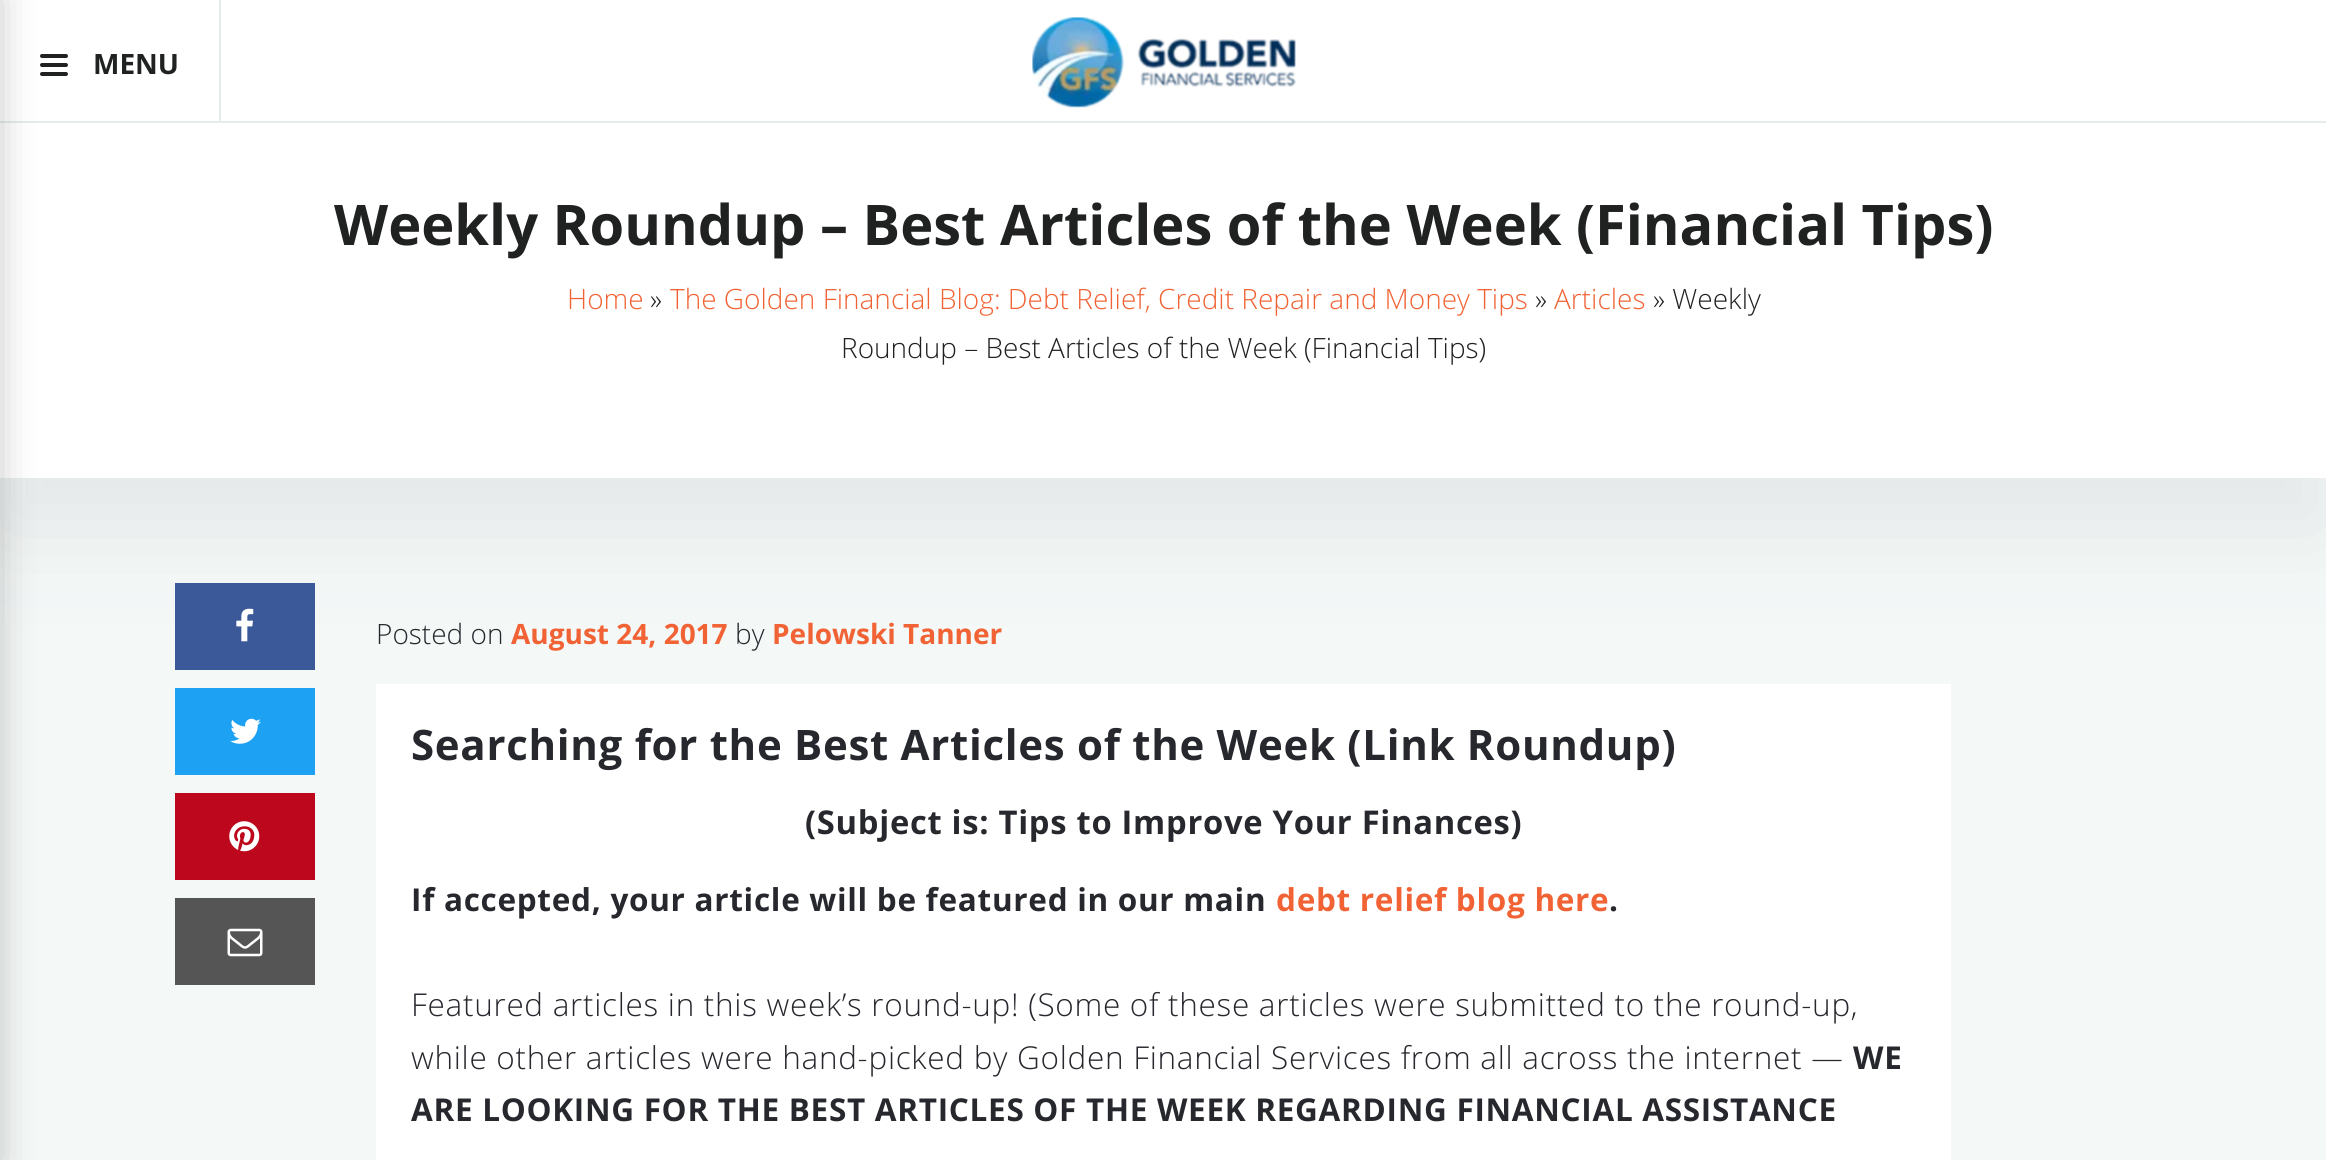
import math
import cairo

surface = cairo.ImageSurface(cairo.FORMAT_RGB24, 2326, 1160)
ctx = cairo.Context(surface)
options = cairo.FontOptions()
options.set_hint_metrics(cairo.HINT_METRICS_OFF)
options.set_hint_style(cairo.HINT_STYLE_NONE)
ctx.set_font_options(options)
ctx.set_miter_limit(4)


def spaced_text(x, y, s, letter, word):
    ctx.move_to(x, y)
    for ch in s:
        ctx.show_text(ch)
        ctx.rel_move_to(letter + word * (ch == ' '), 0)


def round_rect(x, y, w, h, r):
    ctx.new_sub_path()
    for i, (u, v) in enumerate([(x + w - r, y + h - r), (x + r, y + h - r), (x + r, y + r), (x + w - r, y + r)]):
        ctx.arc(u, v, r, i * math.pi / 2, (i + 1) * math.pi / 2)
    ctx.close_path()


def shadow(x, y, w, h, r, blur, alpha):
    ctx.push_group_with_content(cairo.CONTENT_ALPHA)
    ctx.set_operator(cairo.OPERATOR_SOURCE)
    for i in range(15, -16, -2):
        e = blur * i / 6
        if min(w, h) + 2 * e > 0:
            ctx.set_source_rgba(0, 0, 0, alpha * math.erfc((i - 1) / 8.5) / 2)
            round_rect(x - e, y - e, w + 2 * e, h + 2 * e, max(0, min(r + e + blur * .6, min(w, h) / 2 + e)))
            ctx.fill()
    ctx.mask(ctx.pop_group())


def picture(path, x, y, w, h):
    ctx.save()
    ctx.set_source_surface(cairo.ImageSurface.create_from_png(path), x, y)
    ctx.rectangle(x, y, w, h)
    ctx.fill()
    ctx.restore()


ctx.set_source_rgb(0.957, 0.969, 0.965)
ctx.paint()
ctx.set_source_rgb(0.212, 0.224, 0.286)
shadow(0, 140, 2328, 390, 0, 52.5, 0.09)
ctx.set_source_rgb(1, 1, 1)
ctx.rectangle(0, 0, 2326, 121)
ctx.fill()
ctx.set_source_rgb(0.902, 0.918, 0.918)
ctx.rectangle(0, 121, 2326, 2)
ctx.fill()
ctx.set_source_rgb(0.125, 0.129, 0.129)
round_rect(40, 54, 28, 4, 2)
ctx.fill()
round_rect(40, 63, 28, 4, 2)
ctx.fill()
round_rect(40, 72, 28, 4, 2)
ctx.fill()
ctx.set_source_rgb(1, 1, 1)
ctx.rectangle(0, 123, 2326, 355)
ctx.fill()
ctx.set_source_rgb(0, 0, 0)
shadow(-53, -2, 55, 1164, 0, 17.5, 0.2)
ctx.set_source_rgb(0.902, 0.918, 0.918)
ctx.rectangle(219, 0, 2, 123)
ctx.fill()
ctx.select_font_face("Open Sans", cairo.FONT_SLANT_NORMAL, cairo.FONT_WEIGHT_BOLD)
ctx.set_font_size(28)
ctx.set_source_rgb(0.125, 0.129, 0.129)
ctx.move_to(93, 74)
ctx.show_text("MENU")
picture("img1.png", 1032, 17, 264, 91)
ctx.set_font_size(56)
ctx.move_to(334, 245)
ctx.show_text("Weekly Roundup – Best Articles of the Week (Financial Tips)")
ctx.select_font_face("Open Sans Light")
ctx.set_font_size(28)
ctx.set_source_rgb(0.945, 0.388, 0.204)
ctx.move_to(567, 309)
ctx.show_text("Home")
ctx.set_source_rgb(0.125, 0.129, 0.129)
ctx.move_to(650, 309)
ctx.show_text("»")
ctx.set_source_rgb(0.945, 0.388, 0.204)
ctx.move_to(670, 309)
ctx.show_text("The Golden Financial Blog: Debt Relief, Credit Repair and Money Tips")
ctx.set_source_rgb(0.125, 0.129, 0.129)
ctx.move_to(1535, 309)
ctx.show_text("»")
ctx.set_source_rgb(0.945, 0.388, 0.204)
ctx.move_to(1554, 309)
ctx.show_text("Articles")
ctx.set_source_rgb(0.125, 0.129, 0.129)
ctx.move_to(1653, 309)
ctx.show_text("» Weekly")
ctx.move_to(841, 358)
ctx.show_text("Roundup – Best Articles of the Week (Financial Tips)")
ctx.set_source_rgb(0.231, 0.349, 0.596)
ctx.rectangle(175, 583, 140, 87)
ctx.fill()
picture("img2.png", 236, 608, 18, 34)
ctx.set_source_rgb(0.114, 0.631, 0.949)
ctx.rectangle(175, 688, 140, 87)
ctx.fill()
picture("img3.png", 230, 718, 31, 26)
ctx.set_source_rgb(0.741, 0.031, 0.11)
ctx.rectangle(175, 793, 140, 87)
ctx.fill()
picture("img4.png", 229, 821, 31, 31)
ctx.set_source_rgb(0.333, 0.333, 0.333)
ctx.rectangle(175, 898, 140, 87)
ctx.fill()
picture("img5.png", 227, 928, 36, 29)
ctx.set_source_rgb(0.149, 0.157, 0.176)
ctx.move_to(376, 644)
ctx.show_text("Posted on")
ctx.select_font_face("Open Sans", cairo.FONT_SLANT_NORMAL, cairo.FONT_WEIGHT_BOLD)
ctx.set_source_rgb(0.945, 0.388, 0.204)
ctx.move_to(511, 644)
ctx.show_text("August 24, 2017")
ctx.select_font_face("Open Sans Light")
ctx.set_source_rgb(0.149, 0.157, 0.176)
ctx.move_to(735, 644)
ctx.show_text("by")
ctx.select_font_face("Open Sans", cairo.FONT_SLANT_NORMAL, cairo.FONT_WEIGHT_BOLD)
ctx.set_source_rgb(0.945, 0.388, 0.204)
ctx.move_to(772, 644)
ctx.show_text("Pelowski Tanner")
ctx.set_source_rgb(1, 1, 1)
ctx.rectangle(376, 684, 1575, 476)
ctx.fill()
ctx.set_font_size(42)
ctx.set_source_rgb(0.149, 0.157, 0.176)
spaced_text(411, 760, "Searching for the Best Articles of the Week (Link Roundup)", 0.7, 0)
ctx.set_font_size(32.75)
spaced_text(805, 834, "(Subject is: Tips to Improve Your Finances)", 0.7, 0)
ctx.set_font_size(31.5)
spaced_text(411, 911, "If accepted, your article will be featured in our main", 0.7, 0)
ctx.set_source_rgb(0.945, 0.388, 0.204)
spaced_text(1276, 911, "debt relief blog here", 0.7, 0)
ctx.set_source_rgb(0.149, 0.157, 0.176)
spaced_text(1609, 911, ".", 0.7, 0)
ctx.select_font_face("Open Sans Light")
spaced_text(411, 1016, "Featured articles in this week’s round-up! (Some of these articles were submitted to the round-up,", 0.7, 0)
spaced_text(411, 1069, "while other articles were hand-picked by Golden Financial Services from all across the internet —", 0.7, 0)
ctx.select_font_face("Open Sans", cairo.FONT_SLANT_NORMAL, cairo.FONT_WEIGHT_BOLD)
spaced_text(1853, 1069, "WE", 0.7, 0)
spaced_text(411, 1121, "ARE LOOKING FOR THE BEST ARTICLES OF THE WEEK REGARDING FINANCIAL ASSISTANCE", 0.7, 0)
surface.write_to_png("page.png")
